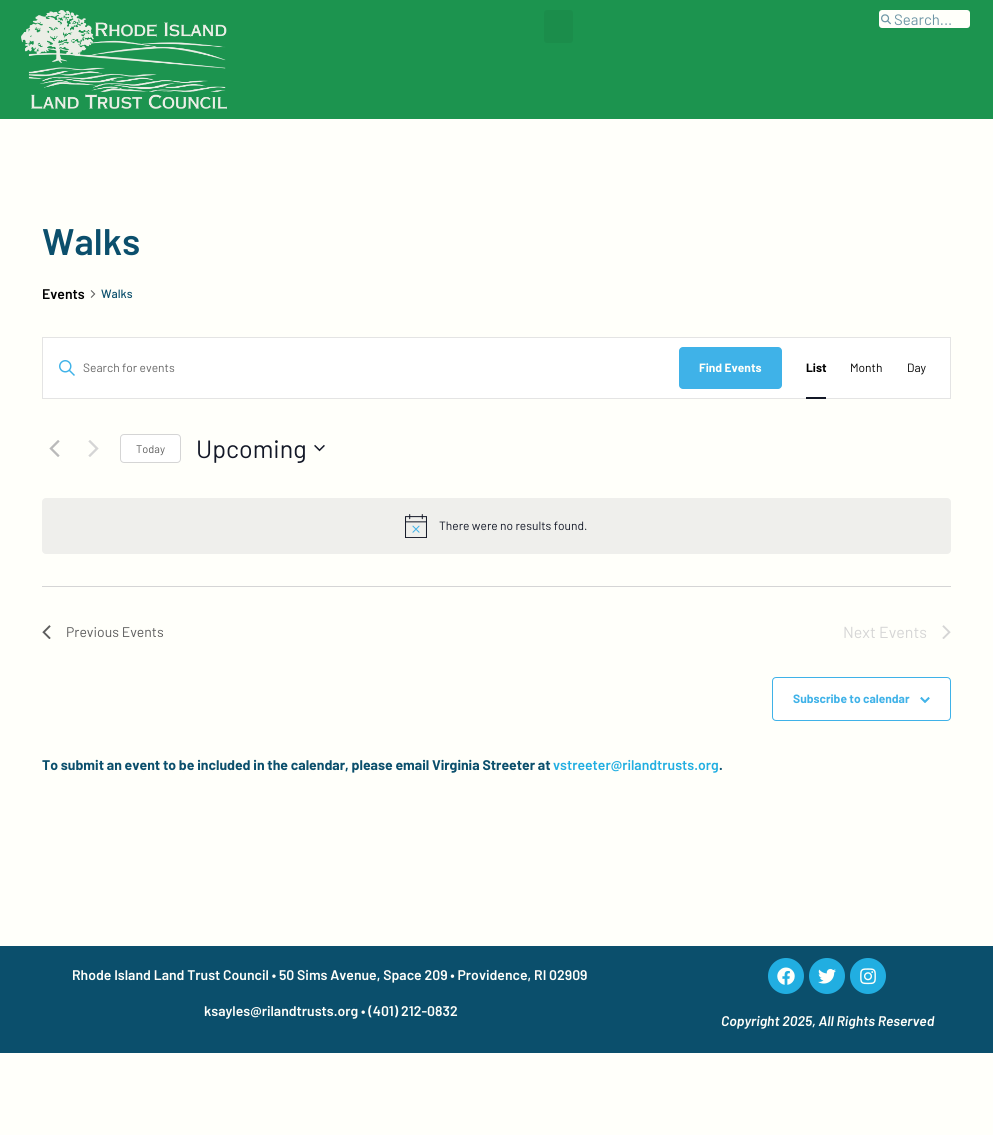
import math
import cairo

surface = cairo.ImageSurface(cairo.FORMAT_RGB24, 993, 1135)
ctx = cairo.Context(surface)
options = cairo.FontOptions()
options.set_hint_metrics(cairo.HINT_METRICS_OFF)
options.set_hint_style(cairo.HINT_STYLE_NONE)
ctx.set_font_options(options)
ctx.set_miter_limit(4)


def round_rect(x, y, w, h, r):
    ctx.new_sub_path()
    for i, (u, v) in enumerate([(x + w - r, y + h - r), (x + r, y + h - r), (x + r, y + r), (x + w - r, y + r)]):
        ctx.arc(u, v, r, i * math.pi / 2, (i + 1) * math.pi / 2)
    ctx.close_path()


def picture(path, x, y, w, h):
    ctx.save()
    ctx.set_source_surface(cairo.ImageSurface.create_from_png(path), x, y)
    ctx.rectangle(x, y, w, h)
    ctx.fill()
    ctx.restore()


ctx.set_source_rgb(1, 1, 0.98)
ctx.paint()
ctx.set_source_rgb(0.11, 0.58, 0.31)
ctx.rectangle(0, 0, 993, 119)
ctx.fill()
picture("img1.png", 21, 10, 206, 99)
ctx.set_source_rgb(0.106, 0.553, 0.294)
round_rect(544, 10, 29, 33, 3)
ctx.fill()
ctx.set_source_rgb(1, 1, 0.98)
round_rect(879, 10, 91, 18, 3)
ctx.fill()
picture("img2.png", 881, 14, 10, 11)
ctx.select_font_face("Barlow")
ctx.set_font_size(15)
ctx.set_source_rgb(0.427, 0.584, 0.647)
ctx.move_to(894, 25)
ctx.show_text("Search...")
ctx.select_font_face("Barlow SemiBold")
ctx.set_font_size(37)
ctx.set_source_rgb(0.043, 0.31, 0.424)
ctx.move_to(42, 255)
ctx.show_text("Walks")
ctx.set_font_size(14)
ctx.set_source_rgb(0, 0, 0)
ctx.move_to(42, 299)
ctx.show_text("Events")
picture("img3.png", 90, 290, 6, 8)
ctx.select_font_face("Barlow Medium")
ctx.set_font_size(12)
ctx.set_source_rgb(0.043, 0.31, 0.424)
ctx.move_to(101, 298)
ctx.show_text("Walks")
ctx.set_source_rgb(1, 1, 1)
ctx.rectangle(42.5, 337.5, 908, 61)
ctx.fill_preserve()
ctx.set_source_rgb(0.894, 0.894, 0.894)
ctx.set_line_width(1)
ctx.stroke()
picture("img4.png", 59, 360, 16, 16)
ctx.select_font_face("Barlow")
ctx.set_source_rgb(0.4, 0.4, 0.4)
ctx.move_to(83, 372)
ctx.show_text("Search for events")
ctx.set_source_rgb(0.247, 0.698, 0.91)
round_rect(679, 347, 103, 42, 4)
ctx.fill()
ctx.select_font_face("Barlow", cairo.FONT_SLANT_NORMAL, cairo.FONT_WEIGHT_BOLD)
ctx.set_source_rgb(1, 1, 0.98)
ctx.move_to(699, 372)
ctx.show_text("Find Events")
ctx.set_source_rgb(0, 0, 0)
ctx.move_to(806, 372)
ctx.show_text("List")
ctx.set_source_rgb(0.078, 0.094, 0.153)
ctx.rectangle(806, 397, 20, 2)
ctx.fill()
ctx.select_font_face("Barlow")
ctx.set_source_rgb(0, 0, 0)
ctx.move_to(850, 372)
ctx.show_text("Month")
ctx.move_to(907, 372)
ctx.show_text("Day")
picture("img5.png", 49, 440, 11, 17)
picture("img6.png", 88, 440, 11, 17)
ctx.set_source_rgb(1, 1, 1)
round_rect(120.5, 434.5, 60, 28, 3.5)
ctx.fill_preserve()
ctx.set_source_rgb(0.835, 0.835, 0.835)
ctx.stroke()
ctx.set_font_size(11)
ctx.set_source_rgb(0.365, 0.365, 0.365)
ctx.move_to(136, 453)
ctx.show_text("Today")
ctx.set_font_size(25)
ctx.set_source_rgb(0.078, 0.094, 0.153)
ctx.move_to(196, 458)
ctx.show_text("Upcoming")
picture("img7.png", 314, 444, 11, 8)
ctx.set_source_rgb(0.937, 0.937, 0.922)
round_rect(42, 498, 909, 56, 4)
ctx.fill()
picture("img8.png", 405, 514, 22, 24)
ctx.set_font_size(12)
ctx.set_source_rgb(0.078, 0.094, 0.153)
ctx.move_to(439, 530)
ctx.show_text("There were no results found.")
ctx.set_source_rgb(0.835, 0.835, 0.835)
ctx.rectangle(42, 586, 909, 1)
ctx.fill()
picture("img9.png", 42, 625, 9, 14)
ctx.set_font_size(14)
ctx.set_source_rgb(0.365, 0.365, 0.365)
ctx.move_to(66, 637)
ctx.show_text("Previous Events")
ctx.set_font_size(16)
ctx.set_source_rgb(0.835, 0.835, 0.835)
ctx.move_to(843, 638)
ctx.show_text("Next Events")
picture("img10.png", 942, 625, 9, 14)
ctx.set_source_rgb(1, 1, 1)
round_rect(772.5, 677.5, 178, 43, 3.5)
ctx.fill_preserve()
ctx.set_source_rgb(0.247, 0.698, 0.91)
ctx.stroke()
ctx.select_font_face("Barlow", cairo.FONT_SLANT_NORMAL, cairo.FONT_WEIGHT_BOLD)
ctx.set_font_size(12)
ctx.move_to(793, 703)
ctx.show_text("Subscribe to calendar")
picture("img11.png", 920, 697, 10, 6)
ctx.set_font_size(14)
ctx.set_source_rgb(0.043, 0.31, 0.424)
ctx.move_to(42, 770)
ctx.show_text("To submit an event to be included in the calendar, please email Virginia Streeter at")
ctx.select_font_face("Barlow SemiBold")
ctx.set_source_rgb(0.129, 0.682, 0.882)
ctx.move_to(553, 770)
ctx.show_text("vstreeter@rilandtrusts.org")
ctx.select_font_face("Barlow", cairo.FONT_SLANT_NORMAL, cairo.FONT_WEIGHT_BOLD)
ctx.set_source_rgb(0.043, 0.31, 0.424)
ctx.move_to(719, 770)
ctx.show_text(".")
ctx.rectangle(0, 946, 993, 107)
ctx.fill()
ctx.select_font_face("Barlow SemiBold")
ctx.set_source_rgb(1, 1, 0.98)
ctx.move_to(72, 980)
ctx.show_text("Rhode Island Land Trust Council • 50 Sims Avenue, Space 209 • Providence, RI 02909")
ctx.move_to(204, 1016)
ctx.show_text("ksayles@rilandtrusts.org • (401) 212-0832")
ctx.set_source_rgb(0.129, 0.682, 0.882)
ctx.new_path()
ctx.arc(786, 976, 18, 0, 2 * math.pi)
ctx.fill()
picture("img12.png", 777, 967, 18, 18)
ctx.arc(827, 976, 18, 0, 2 * math.pi)
ctx.fill()
picture("img13.png", 818, 968, 18, 16)
ctx.arc(868, 976, 18, 0, 2 * math.pi)
ctx.fill()
picture("img14.png", 860, 968, 16, 17)
ctx.select_font_face("Barlow SemiBold", cairo.FONT_SLANT_ITALIC)
ctx.set_source_rgb(1, 1, 0.98)
ctx.move_to(721, 1026)
ctx.show_text("Copyright 2025, All Rights Reserved")
surface.write_to_png("page.png")
